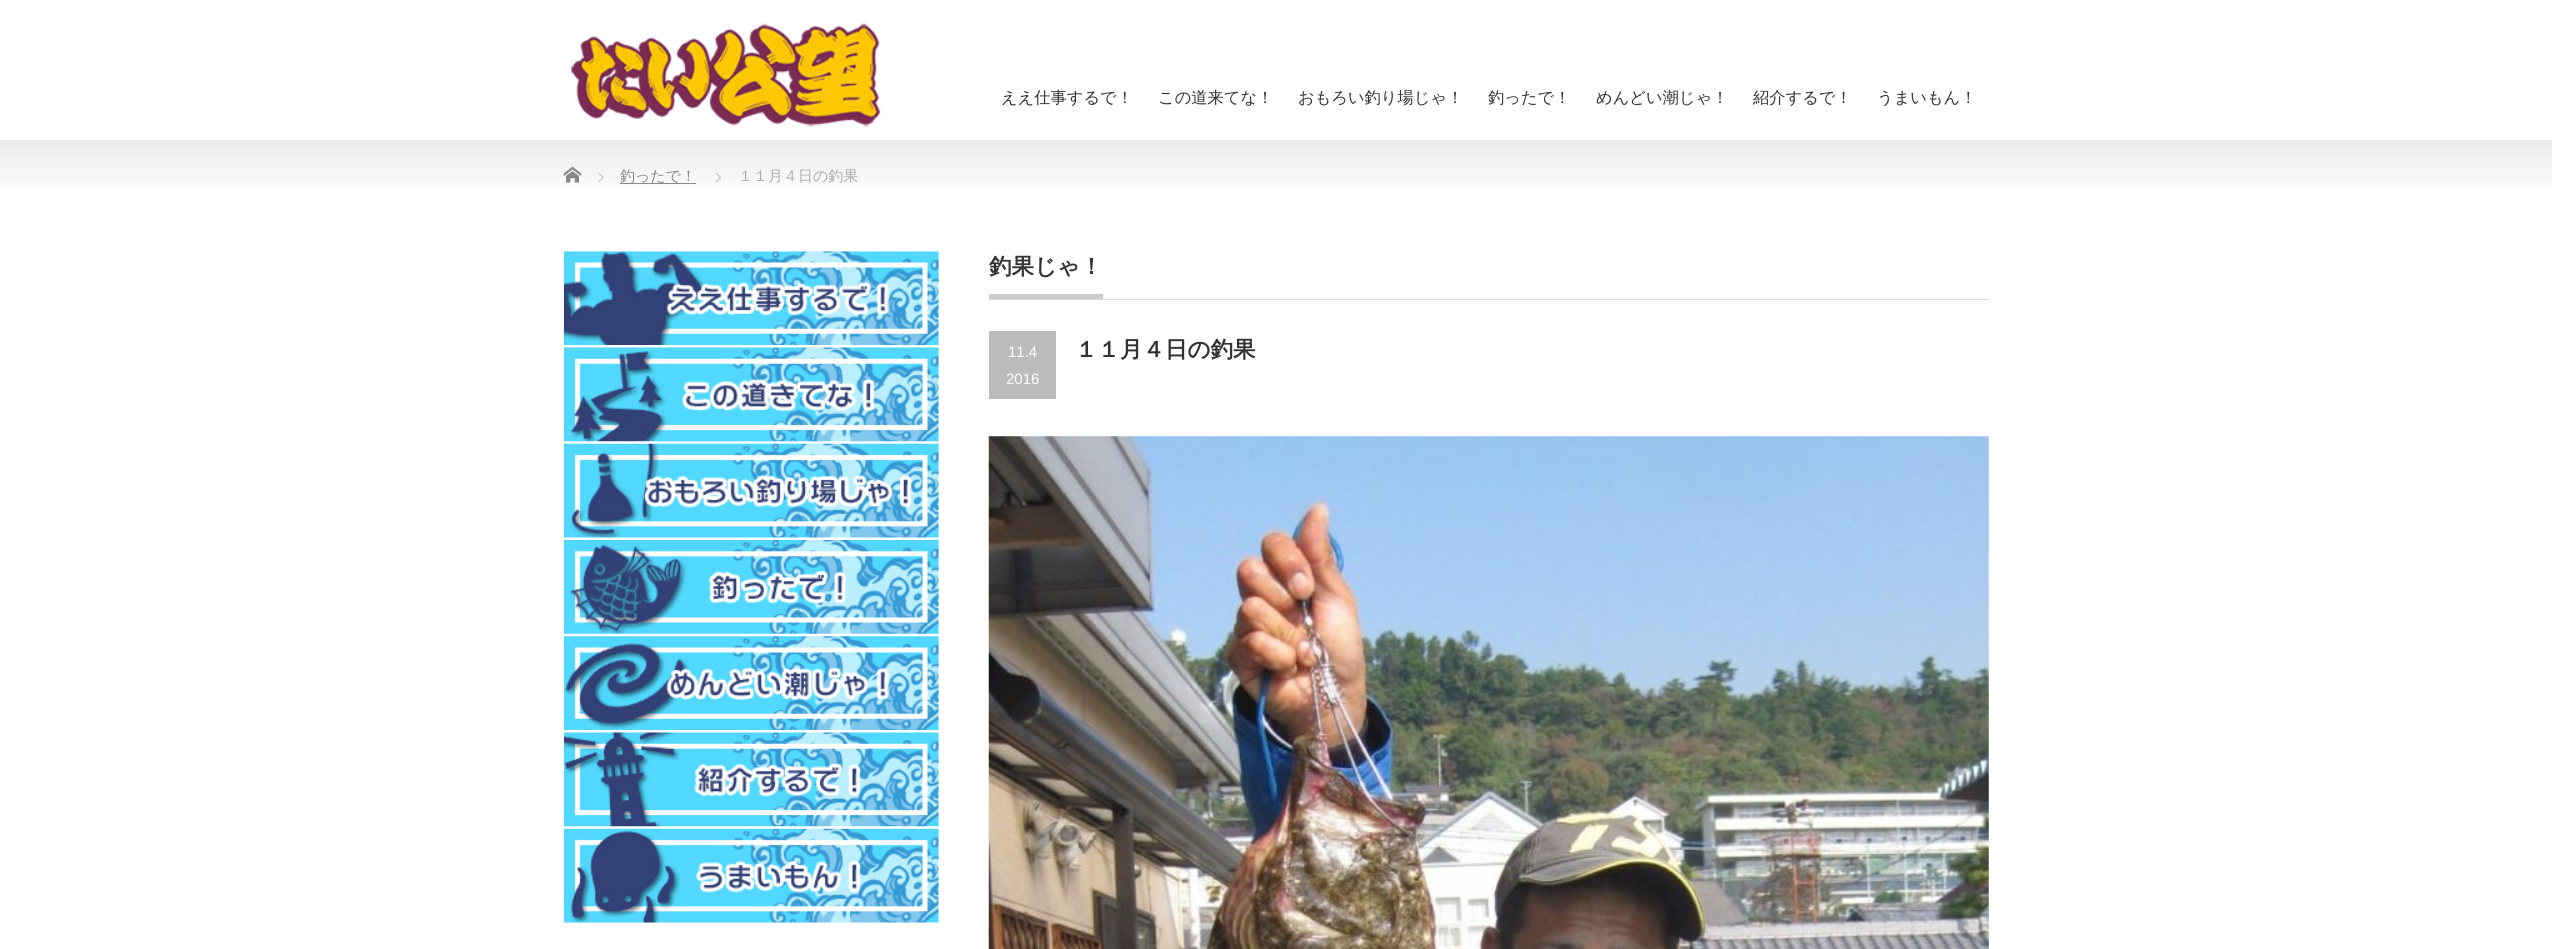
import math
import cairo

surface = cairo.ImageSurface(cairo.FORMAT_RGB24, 2552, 949)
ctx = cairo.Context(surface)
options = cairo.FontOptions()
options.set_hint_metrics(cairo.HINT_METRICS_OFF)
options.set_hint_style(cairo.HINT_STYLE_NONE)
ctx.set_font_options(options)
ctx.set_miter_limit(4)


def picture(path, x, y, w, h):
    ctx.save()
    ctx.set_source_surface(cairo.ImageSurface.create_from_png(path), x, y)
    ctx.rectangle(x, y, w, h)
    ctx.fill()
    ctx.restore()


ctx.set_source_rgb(1, 1, 1)
ctx.paint()
picture("img1.png", 571, 23, 310, 104)
ctx.select_font_face("WenQuanYi Zen Hei Medium")
ctx.set_font_size(16.25)
ctx.set_source_rgb(0.2, 0.2, 0.2)
ctx.move_to(1001, 103)
ctx.show_text("ええ仕事するで！")
ctx.move_to(1158, 103)
ctx.show_text("この道来てな！")
ctx.move_to(1298, 103)
ctx.show_text("おもろい釣り場じゃ！")
ctx.move_to(1488, 103)
ctx.show_text("釣ったで！")
ctx.move_to(1596, 103)
ctx.show_text("めんどい潮じゃ！")
ctx.move_to(1753, 103)
ctx.show_text("紹介するで！")
ctx.move_to(1877, 103)
ctx.show_text("うまいもん！")
picture("img2.png", 0, 140, 2552, 46)
picture("img3.png", 563, 166, 19, 17)
picture("img4.png", 598, 172, 6, 11)
ctx.set_source_rgb(0.533, 0.533, 0.533)
ctx.rectangle(620, 183, 76, 1)
ctx.fill()
ctx.set_font_size(15)
ctx.move_to(620, 181)
ctx.show_text("釣ったで！")
picture("img5.png", 715, 172, 6, 11)
ctx.set_source_rgb(0.667, 0.667, 0.667)
ctx.move_to(738, 181)
ctx.show_text("１１月４日の釣果")
picture("img6.png", 563, 251, 376, 94)
picture("img7.png", 563, 347, 376, 95)
picture("img8.png", 563, 443, 376, 95)
picture("img9.png", 563, 540, 376, 94)
picture("img10.png", 563, 636, 376, 94)
picture("img11.png", 563, 732, 376, 95)
picture("img12.png", 563, 828, 376, 95)
ctx.set_source_rgb(0.867, 0.867, 0.867)
ctx.rectangle(989, 299, 1000, 1)
ctx.fill()
ctx.set_source_rgb(0.8, 0.8, 0.8)
ctx.rectangle(989, 294, 114, 5)
ctx.fill()
ctx.select_font_face("WenQuanYi Zen Hei", cairo.FONT_SLANT_NORMAL, cairo.FONT_WEIGHT_BOLD)
ctx.set_font_size(22.5)
ctx.set_source_rgb(0.2, 0.2, 0.2)
ctx.move_to(989, 274)
ctx.show_text("釣果じゃ！")
ctx.set_source_rgb(0.733, 0.733, 0.733)
ctx.rectangle(989, 331, 67, 68)
ctx.fill()
ctx.select_font_face("Liberation Sans")
ctx.set_font_size(15)
ctx.set_source_rgb(1, 1, 1)
ctx.move_to(1008, 357)
ctx.show_text("11.4")
ctx.move_to(1006, 384)
ctx.show_text("2016")
ctx.select_font_face("WenQuanYi Zen Hei", cairo.FONT_SLANT_NORMAL, cairo.FONT_WEIGHT_BOLD)
ctx.set_font_size(22.5)
ctx.set_source_rgb(0.2, 0.2, 0.2)
ctx.move_to(1075, 357)
ctx.show_text("１１月４日の釣果")
picture("img13.png", 988, 436, 1001, 513)
surface.write_to_png("page.png")
